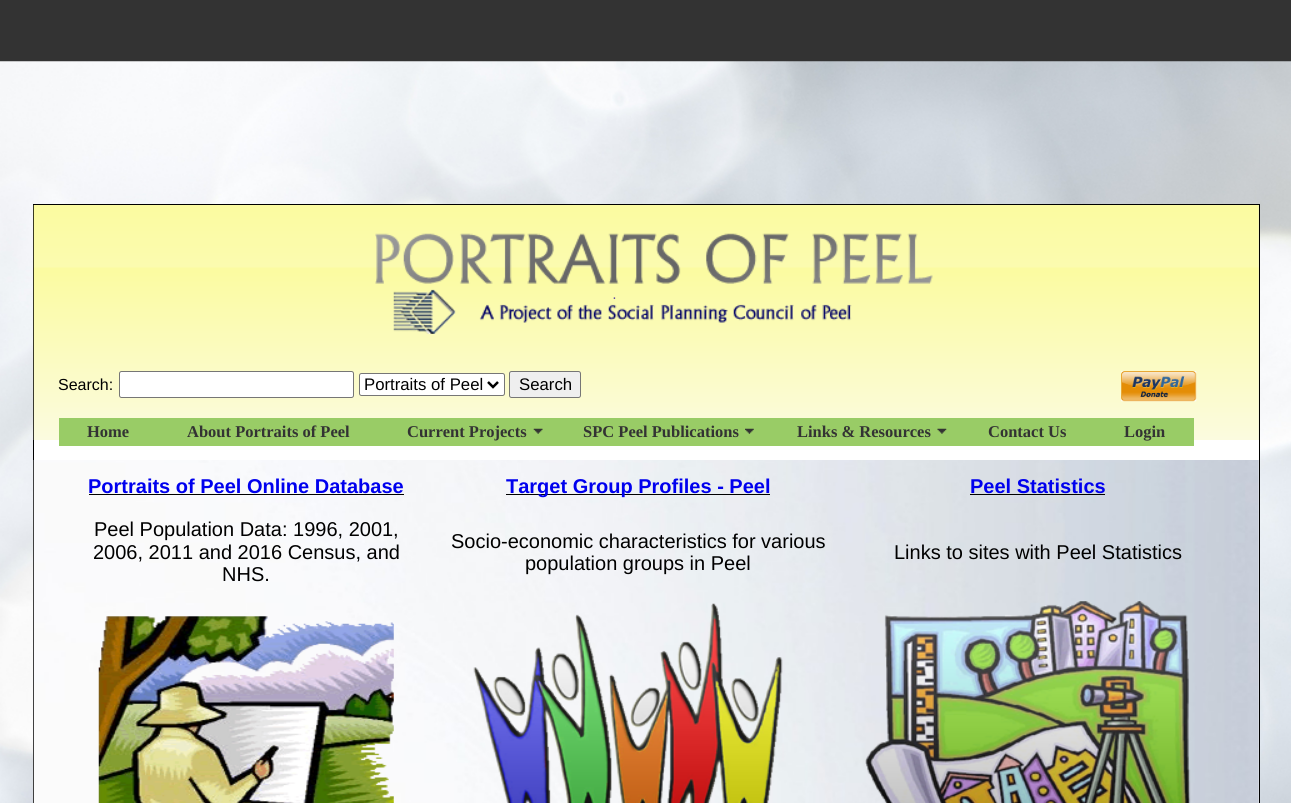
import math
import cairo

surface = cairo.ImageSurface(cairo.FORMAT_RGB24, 1291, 803)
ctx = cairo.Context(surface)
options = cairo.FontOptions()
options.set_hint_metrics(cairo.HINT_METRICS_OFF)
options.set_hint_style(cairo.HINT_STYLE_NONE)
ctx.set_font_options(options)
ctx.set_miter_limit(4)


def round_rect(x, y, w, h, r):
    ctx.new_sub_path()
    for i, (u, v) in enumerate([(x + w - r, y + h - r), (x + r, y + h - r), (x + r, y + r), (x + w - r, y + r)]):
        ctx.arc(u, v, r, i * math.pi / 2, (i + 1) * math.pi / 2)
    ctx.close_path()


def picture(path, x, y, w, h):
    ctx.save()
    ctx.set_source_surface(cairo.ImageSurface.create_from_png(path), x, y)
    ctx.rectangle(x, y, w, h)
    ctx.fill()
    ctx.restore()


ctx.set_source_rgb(0.2, 0.2, 0.2)
ctx.paint()
picture("img1.png", 0, 61, 1291, 742)
ctx.set_source_rgb(1, 1, 1)
ctx.rectangle(34, 440, 1225, 363)
ctx.fill()
ctx.rectangle(33.5, 204.5, 1226, 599)
ctx.set_source_rgb(0, 0, 0)
ctx.set_line_width(1)
ctx.stroke()
ctx.set_source_rgb(0.867, 0.867, 0.867)
ctx.rectangle(34, 205, 1225, 235)
ctx.fill()
picture("img2.png", 33, 205, 1226, 235)
picture("img3.png", 375, 233, 558, 101)
ctx.select_font_face("Liberation Sans")
ctx.set_font_size(16)
ctx.set_source_rgb(0, 0, 0)
ctx.move_to(58, 390)
ctx.show_text("Search:")
ctx.set_source_rgb(1, 1, 1)
round_rect(119.5, 371.5, 234, 26, 2)
ctx.fill_preserve()
ctx.set_source_rgb(0.463, 0.463, 0.463)
ctx.stroke()
ctx.set_source_rgb(1, 1, 1)
round_rect(359.5, 373.5, 145, 22, 2)
ctx.fill_preserve()
ctx.set_source_rgb(0.463, 0.463, 0.463)
ctx.stroke()
ctx.new_path()
ctx.move_to(488, 382)
ctx.line_to(493, 387)
ctx.line_to(498, 382)
ctx.set_source_rgb(0, 0, 0)
ctx.set_line_width(2.5)
ctx.stroke()
ctx.set_font_size(16.75)
ctx.move_to(364, 390)
ctx.show_text("Portraits of Peel")
ctx.set_source_rgb(0.937, 0.937, 0.937)
round_rect(509.5, 371.5, 71, 26, 2)
ctx.fill_preserve()
ctx.set_source_rgb(0.463, 0.463, 0.463)
ctx.set_line_width(1)
ctx.stroke()
ctx.set_source_rgb(0, 0, 0)
ctx.move_to(519, 390)
ctx.show_text("Search")
picture("img4.png", 1121, 371, 76, 31)
ctx.set_source_rgb(0.6, 0.8, 0.4)
ctx.rectangle(59, 418, 1135, 28)
ctx.fill()
ctx.select_font_face("Liberation Serif", cairo.FONT_SLANT_NORMAL, cairo.FONT_WEIGHT_BOLD)
ctx.set_font_size(16.5)
ctx.set_source_rgb(0.2, 0.2, 0.2)
ctx.move_to(87, 437)
ctx.show_text("Home")
ctx.move_to(187, 437)
ctx.show_text("About Portraits of Peel")
picture("img5.png", 533, 428, 10, 6)
ctx.move_to(407, 437)
ctx.show_text("Current Projects")
picture("img6.png", 745, 428, 9, 6)
ctx.move_to(583, 437)
ctx.show_text("SPC Peel Publications")
picture("img7.png", 937, 428, 10, 6)
ctx.move_to(797, 437)
ctx.show_text("Links & Resources")
ctx.move_to(988, 437)
ctx.show_text("Contact Us")
ctx.move_to(1124, 437)
ctx.show_text("Login")
picture("img8.png", 33, 460, 1226, 343)
ctx.select_font_face("Liberation Sans", cairo.FONT_SLANT_NORMAL, cairo.FONT_WEIGHT_BOLD)
ctx.set_font_size(20)
ctx.set_source_rgb(0, 0, 0.933)
ctx.move_to(88, 493)
ctx.show_text("Portraits of Peel Online Database")
ctx.set_source_rgb(0, 0, 0)
ctx.rectangle(89, 494, 315, 1)
ctx.fill()
ctx.rectangle(506, 494, 264, 1)
ctx.fill()
ctx.set_source_rgb(0, 0, 0.933)
ctx.move_to(506, 493)
ctx.show_text("Target Group Profiles - Peel")
ctx.move_to(970, 493)
ctx.show_text("Peel Statistics")
ctx.set_source_rgb(0, 0, 0)
ctx.rectangle(970, 494, 135, 1)
ctx.fill()
ctx.select_font_face("Liberation Sans")
ctx.move_to(94, 536)
ctx.show_text("Peel Population Data: 1996, 2001,")
ctx.move_to(93, 559)
ctx.show_text("2006, 2011 and 2016 Census, and")
ctx.move_to(222, 581)
ctx.show_text("NHS.")
ctx.move_to(451, 548)
ctx.show_text("Socio-economic characteristics for various")
ctx.move_to(525, 570)
ctx.show_text("population groups in Peel")
ctx.move_to(894, 559)
ctx.show_text("Links to sites with Peel Statistics")
picture("img9.png", 98, 616, 296, 187)
picture("img10.png", 473, 603, 310, 200)
picture("img11.png", 865, 601, 326, 202)
surface.write_to_png("page.png")
